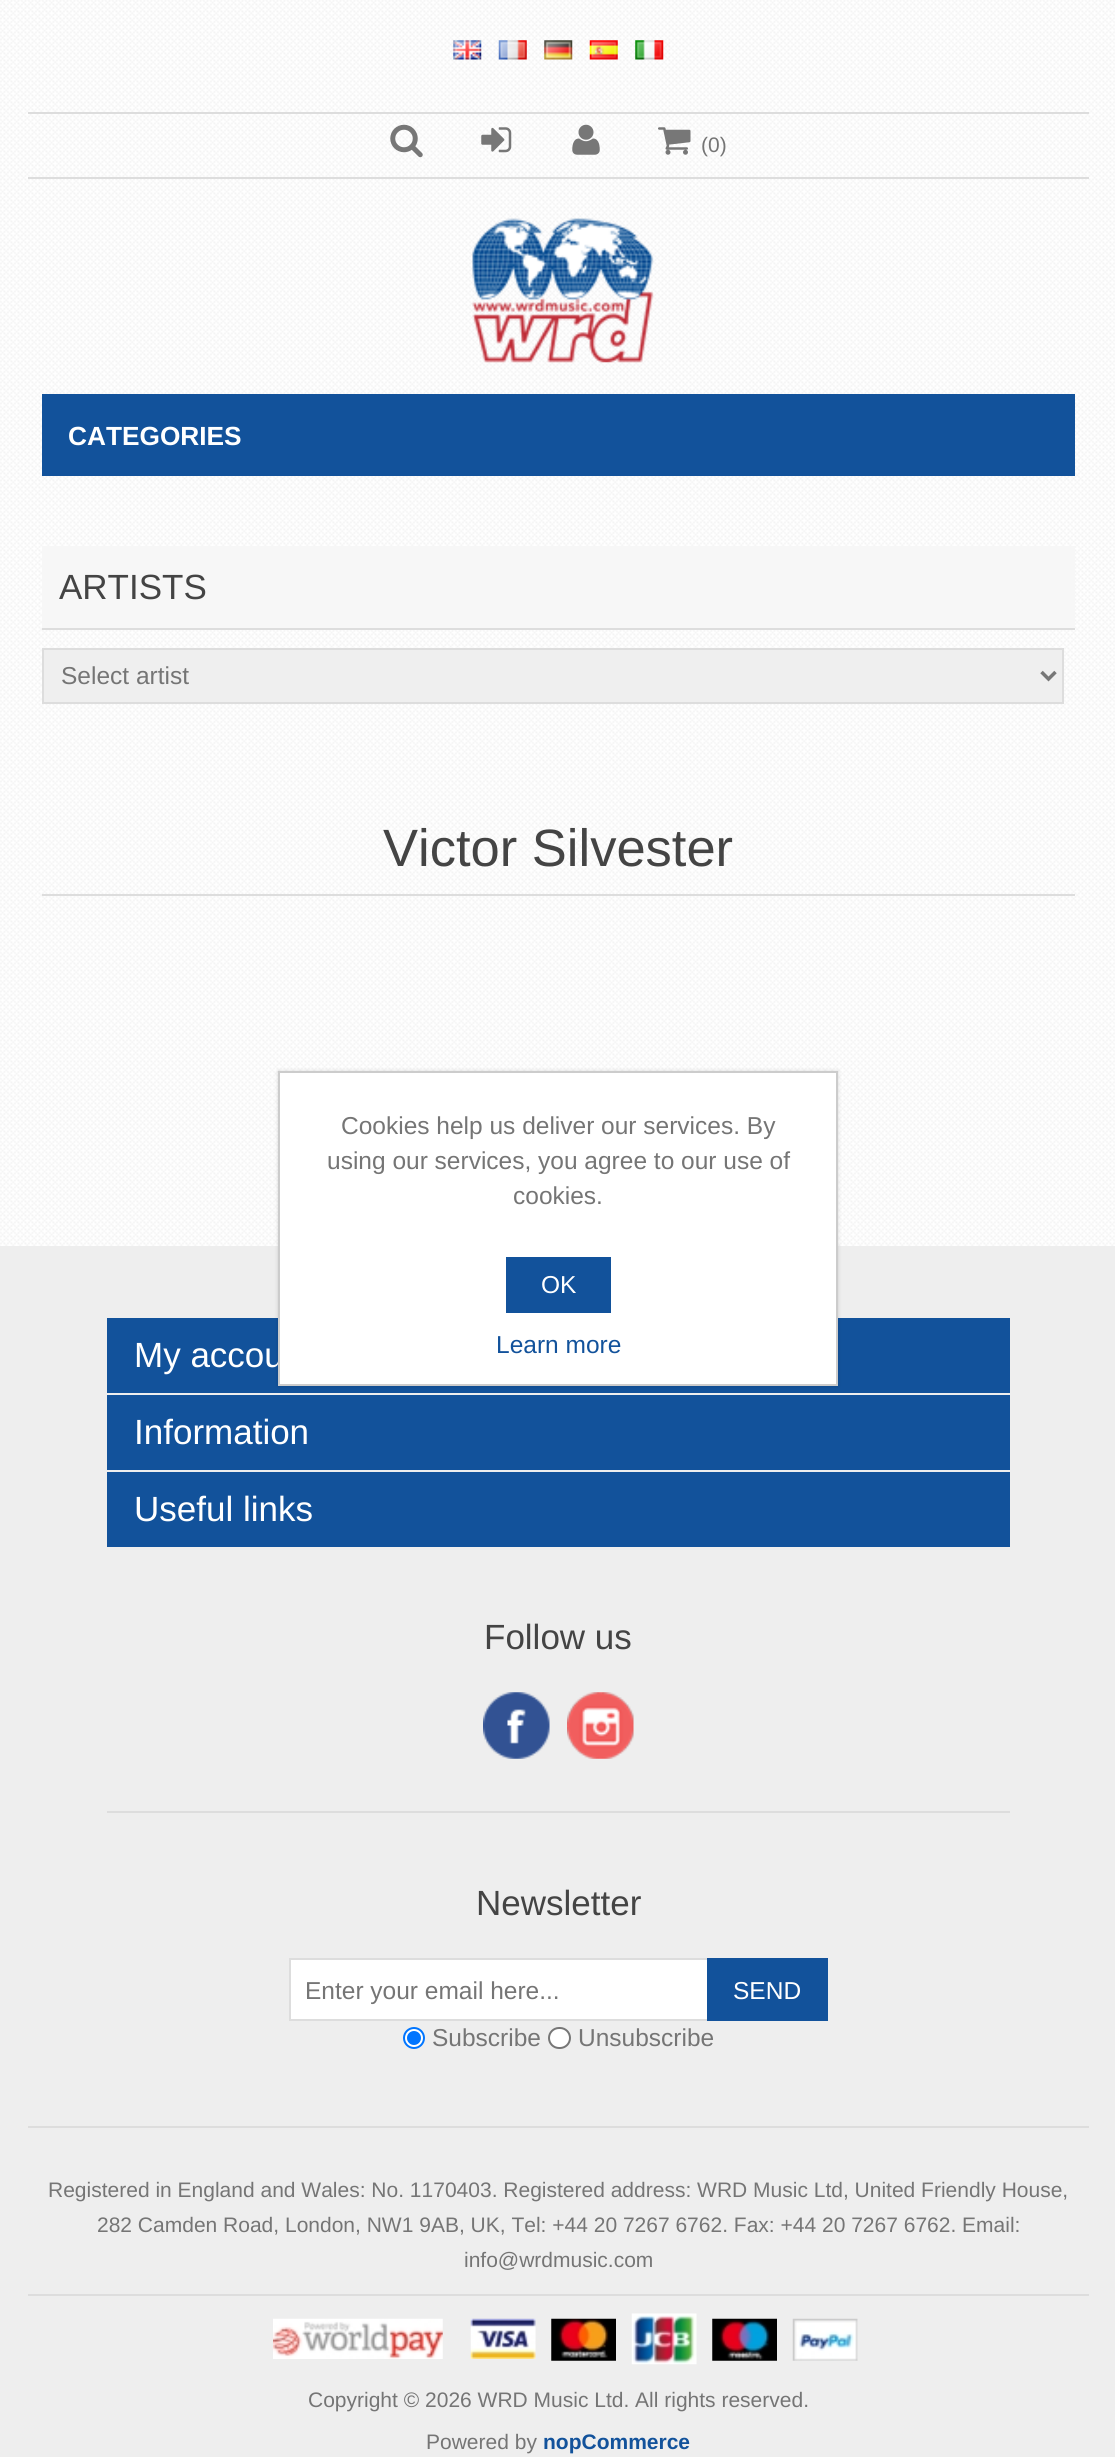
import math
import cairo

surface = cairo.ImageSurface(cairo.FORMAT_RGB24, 1115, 2457)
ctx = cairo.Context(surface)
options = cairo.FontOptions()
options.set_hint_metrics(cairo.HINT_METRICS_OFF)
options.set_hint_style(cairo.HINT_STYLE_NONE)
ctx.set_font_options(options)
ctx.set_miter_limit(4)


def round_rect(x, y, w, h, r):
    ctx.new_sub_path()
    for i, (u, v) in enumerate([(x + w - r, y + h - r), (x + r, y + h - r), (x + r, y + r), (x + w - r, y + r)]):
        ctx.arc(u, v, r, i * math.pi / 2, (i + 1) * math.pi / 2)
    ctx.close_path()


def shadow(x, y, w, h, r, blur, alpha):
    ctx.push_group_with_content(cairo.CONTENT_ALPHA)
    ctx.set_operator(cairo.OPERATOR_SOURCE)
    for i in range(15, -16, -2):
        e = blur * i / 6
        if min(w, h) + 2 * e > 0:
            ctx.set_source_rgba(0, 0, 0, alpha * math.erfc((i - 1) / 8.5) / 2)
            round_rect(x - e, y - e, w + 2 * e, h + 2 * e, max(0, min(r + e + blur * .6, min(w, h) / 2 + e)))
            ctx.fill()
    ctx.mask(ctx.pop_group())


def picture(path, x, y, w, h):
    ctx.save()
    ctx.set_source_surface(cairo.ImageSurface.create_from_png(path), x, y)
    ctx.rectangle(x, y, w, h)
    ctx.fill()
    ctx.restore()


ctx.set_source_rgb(1, 1, 1)
ctx.paint()
picture("img1.png", 0, 0, 1115, 1246)
ctx.set_source_rgb(0.867, 0.867, 0.867)
ctx.rectangle(28, 177, 1061, 2)
ctx.fill()
ctx.rectangle(28, 112, 1061, 2)
ctx.fill()
picture("img2.png", 453, 40, 29, 20)
picture("img3.png", 498, 40, 29, 20)
picture("img4.png", 544, 40, 29, 20)
picture("img5.png", 589, 40, 29, 20)
picture("img6.png", 635, 40, 29, 20)
picture("img7.png", 390, 124, 33, 34)
picture("img8.png", 481, 127, 31, 26)
picture("img9.png", 572, 124, 28, 31)
picture("img10.png", 658, 127, 33, 28)
ctx.select_font_face("Liberation Sans")
ctx.set_font_size(21)
ctx.set_source_rgb(0.459, 0.459, 0.459)
ctx.move_to(701, 152)
ctx.show_text("(0)")
picture("img11.png", 472, 218, 182, 145)
ctx.set_source_rgb(0.071, 0.322, 0.608)
ctx.rectangle(42, 394, 1033, 82)
ctx.fill()
ctx.select_font_face("Liberation Sans", cairo.FONT_SLANT_NORMAL, cairo.FONT_WEIGHT_BOLD)
ctx.set_font_size(26.25)
ctx.set_source_rgb(1, 1, 1)
ctx.move_to(68, 445)
ctx.show_text("CATEGORIES")
ctx.set_source_rgb(0.965, 0.965, 0.965)
ctx.rectangle(42, 546, 1033, 82)
ctx.fill()
ctx.set_source_rgb(0.867, 0.867, 0.867)
ctx.rectangle(42, 628, 1033, 2)
ctx.fill()
ctx.select_font_face("Liberation Sans")
ctx.set_font_size(35)
ctx.set_source_rgb(0.267, 0.267, 0.267)
ctx.move_to(59, 599)
ctx.show_text("ARTISTS")
ctx.set_source_rgb(0.937, 0.937, 0.937)
ctx.rectangle(43, 649, 1020, 54)
ctx.fill_preserve()
ctx.set_source_rgb(0.867, 0.867, 0.867)
ctx.stroke()
ctx.new_path()
ctx.move_to(1041.5, 672)
ctx.line_to(1048.5, 679)
ctx.line_to(1055.5, 672)
ctx.set_source_rgb(0.467, 0.467, 0.467)
ctx.set_line_width(3.5)
ctx.stroke()
ctx.set_font_size(24.5)
ctx.set_source_rgb(0.459, 0.459, 0.459)
ctx.move_to(61, 684)
ctx.show_text("Select artist")
ctx.set_source_rgb(0.867, 0.867, 0.867)
ctx.rectangle(42, 894, 1033, 2)
ctx.fill()
ctx.set_font_size(52.5)
ctx.set_source_rgb(0.267, 0.267, 0.267)
ctx.move_to(383, 866)
ctx.show_text("Victor Silvester")
ctx.set_source_rgb(0.933, 0.933, 0.933)
ctx.rectangle(0, 1246, 1115, 1211)
ctx.fill()
ctx.set_source_rgb(0.867, 0.867, 0.867)
ctx.rectangle(28, 2126, 1061, 2)
ctx.fill()
ctx.set_source_rgb(0.071, 0.322, 0.608)
ctx.rectangle(107, 1318, 903, 75)
ctx.fill()
ctx.set_font_size(35)
ctx.set_source_rgb(1, 1, 1)
ctx.move_to(134, 1367)
ctx.show_text("My accou")
ctx.set_source_rgb(0.071, 0.322, 0.608)
ctx.rectangle(107, 1395, 903, 75)
ctx.fill()
ctx.set_source_rgb(1, 1, 1)
ctx.move_to(134, 1444)
ctx.show_text("Information")
ctx.set_source_rgb(0.071, 0.322, 0.608)
ctx.rectangle(107, 1472, 903, 75)
ctx.fill()
ctx.set_source_rgb(1, 1, 1)
ctx.move_to(134, 1521)
ctx.show_text("Useful links")
ctx.set_source_rgb(0.267, 0.267, 0.267)
ctx.move_to(484, 1649)
ctx.show_text("Follow us")
ctx.set_source_rgb(0.867, 0.867, 0.867)
ctx.rectangle(107, 1811, 903, 2)
ctx.fill()
picture("img12.png", 483, 1692, 67, 67)
picture("img13.png", 567, 1692, 67, 67)
ctx.set_source_rgb(0.267, 0.267, 0.267)
ctx.move_to(476, 1915)
ctx.show_text("Newsletter")
ctx.set_source_rgb(1, 1, 1)
ctx.rectangle(290, 1959, 418, 61)
ctx.fill_preserve()
ctx.set_source_rgb(0.867, 0.867, 0.867)
ctx.set_line_width(2)
ctx.stroke()
ctx.set_font_size(24.5)
ctx.set_source_rgb(0.459, 0.459, 0.459)
ctx.move_to(305, 1999)
ctx.show_text("Enter your email here...")
ctx.set_source_rgb(0.071, 0.322, 0.608)
ctx.rectangle(707, 1958, 121, 63)
ctx.fill()
ctx.set_source_rgb(1, 1, 1)
ctx.move_to(733, 1999)
ctx.show_text("SEND")
ctx.new_path()
ctx.arc(414, 2038, 10, 0, 2 * math.pi)
ctx.fill_preserve()
ctx.set_source_rgb(0, 0.459, 1)
ctx.stroke()
ctx.arc(414, 2038, 7, 0, 2 * math.pi)
ctx.fill()
ctx.set_source_rgb(0.459, 0.459, 0.459)
ctx.move_to(432, 2046)
ctx.show_text("Subscribe")
ctx.set_source_rgb(1, 1, 1)
round_rect(549, 2028, 21, 20, 10)
ctx.fill_preserve()
ctx.set_source_rgb(0.463, 0.463, 0.463)
ctx.stroke()
ctx.set_source_rgb(0.459, 0.459, 0.459)
ctx.move_to(578, 2046)
ctx.show_text("Unsubscribe")
ctx.set_source_rgb(0.867, 0.867, 0.867)
ctx.rectangle(28, 2294, 1061, 2)
ctx.fill()
ctx.set_font_size(21)
ctx.set_source_rgb(0.459, 0.459, 0.459)
ctx.move_to(48, 2197)
ctx.show_text("Registered in England and Wales: No. 1170403. Registered address: WRD Music Ltd, United Friendly House,")
ctx.move_to(97, 2232)
ctx.show_text("282 Camden Road, London, NW1 9AB, UK, Tel: +44 20 7267 6762. Fax: +44 20 7267 6762. Email:")
ctx.move_to(464, 2267)
ctx.show_text("info@wrdmusic.com")
picture("img14.png", 273, 2318, 170, 41)
picture("img15.png", 470, 2318, 66, 41)
picture("img16.png", 551, 2318, 65, 43)
picture("img17.png", 631, 2313, 66, 52)
picture("img18.png", 712, 2318, 65, 43)
picture("img19.png", 792, 2318, 66, 43)
ctx.move_to(308, 2407)
ctx.show_text("Copyright © 2026 WRD Music Ltd. All rights reserved.")
ctx.move_to(426, 2449)
ctx.show_text("Powered by")
ctx.select_font_face("Liberation Sans", cairo.FONT_SLANT_NORMAL, cairo.FONT_WEIGHT_BOLD)
ctx.set_source_rgb(0.071, 0.322, 0.608)
ctx.move_to(543, 2449)
ctx.show_text("nopCommerce")
ctx.set_source_rgb(0, 0, 0)
shadow(278, 1071, 560, 315, 0, 2, 0.15)
ctx.set_source_rgb(1, 1, 1)
ctx.rectangle(279, 1072, 558, 313)
ctx.fill_preserve()
ctx.set_source_rgb(0.8, 0.8, 0.8)
ctx.stroke()
ctx.select_font_face("Liberation Sans")
ctx.set_font_size(24.5)
ctx.set_source_rgb(0.459, 0.459, 0.459)
ctx.move_to(341, 1134)
ctx.show_text("Cookies help us deliver our services. By")
ctx.move_to(327, 1169)
ctx.show_text("using our services, you agree to our use of")
ctx.move_to(513, 1204)
ctx.show_text("cookies.")
ctx.set_source_rgb(0.071, 0.322, 0.608)
ctx.rectangle(506, 1257, 105, 56)
ctx.fill()
ctx.set_source_rgb(1, 1, 1)
ctx.move_to(541, 1293)
ctx.show_text("OK")
ctx.set_source_rgb(0.071, 0.322, 0.608)
ctx.move_to(496, 1353)
ctx.show_text("Learn more")
surface.write_to_png("page.png")
